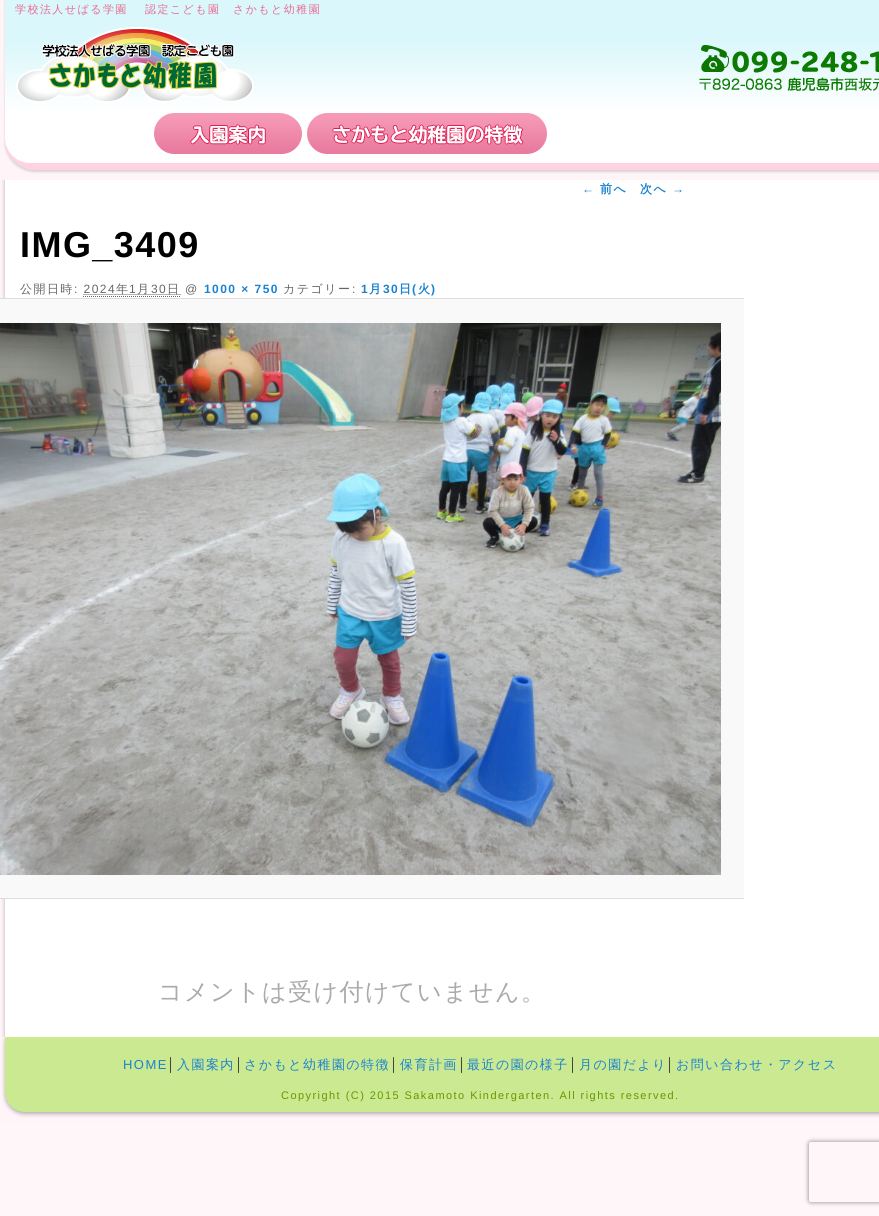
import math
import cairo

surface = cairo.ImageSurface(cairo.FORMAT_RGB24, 879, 1216)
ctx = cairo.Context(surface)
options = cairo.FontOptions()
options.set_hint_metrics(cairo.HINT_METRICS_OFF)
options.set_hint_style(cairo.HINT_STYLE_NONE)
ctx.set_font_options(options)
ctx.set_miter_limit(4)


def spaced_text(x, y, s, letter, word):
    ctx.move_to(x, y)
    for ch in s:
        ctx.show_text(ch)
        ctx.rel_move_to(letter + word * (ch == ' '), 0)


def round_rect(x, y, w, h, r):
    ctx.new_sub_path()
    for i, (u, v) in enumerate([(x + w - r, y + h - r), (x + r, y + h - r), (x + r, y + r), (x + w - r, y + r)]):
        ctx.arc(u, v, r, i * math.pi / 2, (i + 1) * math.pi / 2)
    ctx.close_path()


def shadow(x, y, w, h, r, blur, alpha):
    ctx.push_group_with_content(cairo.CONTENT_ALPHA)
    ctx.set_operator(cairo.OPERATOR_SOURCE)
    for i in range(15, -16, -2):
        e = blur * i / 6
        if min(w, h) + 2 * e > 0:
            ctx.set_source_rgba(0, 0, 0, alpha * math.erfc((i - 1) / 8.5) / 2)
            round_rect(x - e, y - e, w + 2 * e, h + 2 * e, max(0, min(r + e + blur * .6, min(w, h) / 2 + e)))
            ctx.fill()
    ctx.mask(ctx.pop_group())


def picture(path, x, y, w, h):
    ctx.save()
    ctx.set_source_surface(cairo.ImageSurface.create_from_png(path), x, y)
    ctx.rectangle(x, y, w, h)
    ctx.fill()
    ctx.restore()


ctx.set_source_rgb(1, 0.961, 0.973)
ctx.paint()
ctx.set_source_rgb(1, 1, 1)
ctx.rectangle(5, 180, 874, 857)
ctx.fill()
picture("img1.png", 0, 0, 879, 180)
ctx.select_font_face("WenQuanYi Zen Hei Medium")
ctx.set_font_size(11)
ctx.set_source_rgb(0.914, 0.412, 0.576)
spaced_text(15, 13, "学校法人せばる学園　 認定こども園　さかもと幼稚園", 1.45, 0)
picture("img2.png", 16, 27, 238, 76)
picture("img3.png", 699, 45, 180, 46)
picture("img4.png", 154, 113, 148, 41)
picture("img5.png", 307, 113, 240, 41)
picture("img6.png", 0, 180, 5, 857)
ctx.select_font_face("Liberation Sans", cairo.FONT_SLANT_NORMAL, cairo.FONT_WEIGHT_BOLD)
ctx.set_font_size(12)
ctx.set_source_rgb(0.098, 0.51, 0.82)
spaced_text(582, 193, "←", 1.45, 0)
ctx.select_font_face("WenQuanYi Zen Hei", cairo.FONT_SLANT_NORMAL, cairo.FONT_WEIGHT_BOLD)
spaced_text(600, 193, "前へ", 1.45, 0)
spaced_text(640, 193, "次へ", 1.45, 0)
ctx.select_font_face("Liberation Sans", cairo.FONT_SLANT_NORMAL, cairo.FONT_WEIGHT_BOLD)
spaced_text(672, 193, "→", 1.45, 0)
ctx.set_font_size(36)
ctx.set_source_rgb(0, 0, 0)
spaced_text(20, 257, "IMG_3409", 1.45, 0)
ctx.select_font_face("WenQuanYi Zen Hei Medium")
ctx.set_font_size(12)
ctx.set_source_rgb(0.4, 0.4, 0.4)
spaced_text(20, 293, "公開日時", 1.45, 0)
ctx.select_font_face("Liberation Sans")
spaced_text(74, 293, ": 2024", 1.45, 0)
ctx.new_path()
ctx.move_to(83.5, 294.5)
ctx.line_to(180.5, 294.5)
ctx.set_line_width(1)
ctx.set_dash([1, 1])
ctx.stroke()
ctx.select_font_face("WenQuanYi Zen Hei Medium")
spaced_text(116, 293, "年", 1.45, 0)
ctx.new_path()
ctx.move_to(83, 296.5)
ctx.line_to(180, 296.5)
ctx.stroke()
ctx.select_font_face("Liberation Sans")
spaced_text(129, 293, "1", 1.45, 0)
ctx.select_font_face("WenQuanYi Zen Hei Medium")
spaced_text(137, 293, "月", 1.45, 0)
ctx.select_font_face("Liberation Sans")
spaced_text(151, 293, "30", 1.45, 0)
ctx.select_font_face("WenQuanYi Zen Hei Medium")
spaced_text(167, 293, "日", 1.45, 0)
ctx.select_font_face("Liberation Sans")
spaced_text(185, 293, "@", 1.45, 0)
ctx.select_font_face("Liberation Sans", cairo.FONT_SLANT_NORMAL, cairo.FONT_WEIGHT_BOLD)
ctx.set_source_rgb(0.098, 0.51, 0.82)
spaced_text(204, 293, "1000 × 750", 1.45, 0)
ctx.select_font_face("WenQuanYi Zen Hei Medium")
ctx.set_source_rgb(0.4, 0.4, 0.4)
spaced_text(283, 293, "カテゴリー", 1.45, 0)
ctx.select_font_face("Liberation Sans")
spaced_text(352, 293, ":", 1.45, 0)
ctx.select_font_face("Liberation Sans", cairo.FONT_SLANT_NORMAL, cairo.FONT_WEIGHT_BOLD)
ctx.set_source_rgb(0.098, 0.51, 0.82)
spaced_text(361, 293, "1", 1.45, 0)
ctx.select_font_face("WenQuanYi Zen Hei", cairo.FONT_SLANT_NORMAL, cairo.FONT_WEIGHT_BOLD)
spaced_text(369, 293, "月", 1.45, 0)
ctx.select_font_face("Liberation Sans", cairo.FONT_SLANT_NORMAL, cairo.FONT_WEIGHT_BOLD)
spaced_text(383, 293, "30", 1.45, 0)
ctx.select_font_face("WenQuanYi Zen Hei", cairo.FONT_SLANT_NORMAL, cairo.FONT_WEIGHT_BOLD)
spaced_text(399, 293, "日", 1.45, 0)
ctx.select_font_face("Liberation Sans", cairo.FONT_SLANT_NORMAL, cairo.FONT_WEIGHT_BOLD)
spaced_text(412, 293, "(", 1.45, 0)
ctx.select_font_face("WenQuanYi Zen Hei", cairo.FONT_SLANT_NORMAL, cairo.FONT_WEIGHT_BOLD)
spaced_text(418, 293, "火", 1.45, 0)
ctx.select_font_face("Liberation Sans", cairo.FONT_SLANT_NORMAL, cairo.FONT_WEIGHT_BOLD)
spaced_text(431, 293, ")", 1.45, 0)
ctx.set_source_rgb(0.976, 0.976, 0.976)
ctx.rectangle(0, 299, 744, 599)
ctx.fill()
ctx.set_source_rgb(0.867, 0.867, 0.867)
ctx.rectangle(0, 298, 744, 1)
ctx.fill()
ctx.rectangle(0, 898, 744, 1)
ctx.fill()
picture("img7.png", 0, 323, 721, 552)
ctx.select_font_face("WenQuanYi Zen Hei Medium")
ctx.set_font_size(24)
ctx.set_source_rgb(0.667, 0.667, 0.667)
spaced_text(158, 1000, "コメントは受け付けていません。", 1.45, 0)
picture("img8.png", 0, 1037, 879, 85)
ctx.select_font_face("Liberation Sans")
ctx.set_font_size(13)
ctx.set_source_rgb(0.098, 0.51, 0.82)
spaced_text(123, 1069, "HOME", 1.45, 0)
ctx.set_source_rgb(0.216, 0.216, 0.216)
spaced_text(167, 1069, "│", 1.45, 0)
ctx.select_font_face("WenQuanYi Zen Hei Medium")
ctx.set_source_rgb(0.098, 0.51, 0.82)
spaced_text(177, 1069, "入園案内", 1.45, 0)
ctx.select_font_face("Liberation Sans")
ctx.set_source_rgb(0.216, 0.216, 0.216)
spaced_text(235, 1069, "│", 1.45, 0)
ctx.select_font_face("WenQuanYi Zen Hei Medium")
ctx.set_source_rgb(0.098, 0.51, 0.82)
spaced_text(244, 1069, "さかもと幼稚園の特徴", 1.45, 0)
ctx.select_font_face("Liberation Sans")
ctx.set_source_rgb(0.216, 0.216, 0.216)
spaced_text(390, 1069, "│", 1.45, 0)
ctx.select_font_face("WenQuanYi Zen Hei Medium")
ctx.set_source_rgb(0.098, 0.51, 0.82)
spaced_text(400, 1069, "保育計画", 1.45, 0)
ctx.select_font_face("Liberation Sans")
ctx.set_source_rgb(0.216, 0.216, 0.216)
spaced_text(458, 1069, "│", 1.45, 0)
ctx.select_font_face("WenQuanYi Zen Hei Medium")
ctx.set_source_rgb(0.098, 0.51, 0.82)
spaced_text(467, 1069, "最近の園の様子", 1.45, 0)
ctx.select_font_face("Liberation Sans")
ctx.set_source_rgb(0.216, 0.216, 0.216)
spaced_text(569, 1069, "│", 1.45, 0)
ctx.select_font_face("WenQuanYi Zen Hei Medium")
ctx.set_source_rgb(0.098, 0.51, 0.82)
spaced_text(579, 1069, "月の園だより", 1.45, 0)
ctx.select_font_face("Liberation Sans")
ctx.set_source_rgb(0.216, 0.216, 0.216)
spaced_text(666, 1069, "│", 1.45, 0)
ctx.select_font_face("WenQuanYi Zen Hei Medium")
ctx.set_source_rgb(0.098, 0.51, 0.82)
spaced_text(676, 1069, "お問い合わせ・アクセス", 1.45, 0)
ctx.select_font_face("Liberation Sans")
ctx.set_font_size(11)
ctx.set_source_rgb(0.412, 0.588, 0.004)
spaced_text(281, 1099, "Copyright (C) 2015 Sakamoto Kindergarten. All rights reserved.", 1.45, 0)
ctx.save()
ctx.set_fill_rule(cairo.FILL_RULE_EVEN_ODD)
ctx.new_path()
ctx.move_to(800, 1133)
ctx.line_to(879, 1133)
ctx.line_to(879, 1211)
ctx.line_to(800, 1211)
ctx.close_path()
ctx.move_to(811, 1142)
ctx.line_to(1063, 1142)
ctx.curve_to(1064, 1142, 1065, 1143, 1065, 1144)
ctx.line_to(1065, 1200)
ctx.curve_to(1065, 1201, 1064, 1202, 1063, 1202)
ctx.line_to(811, 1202)
ctx.curve_to(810, 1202, 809, 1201, 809, 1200)
ctx.line_to(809, 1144)
ctx.curve_to(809, 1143, 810, 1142, 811, 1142)
ctx.close_path()
ctx.clip()
ctx.set_source_rgb(0.502, 0.502, 0.502)
shadow(809, 1142, 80, 60, 2, 2.5, 1)
ctx.restore()
surface.write_to_png("page.png")
